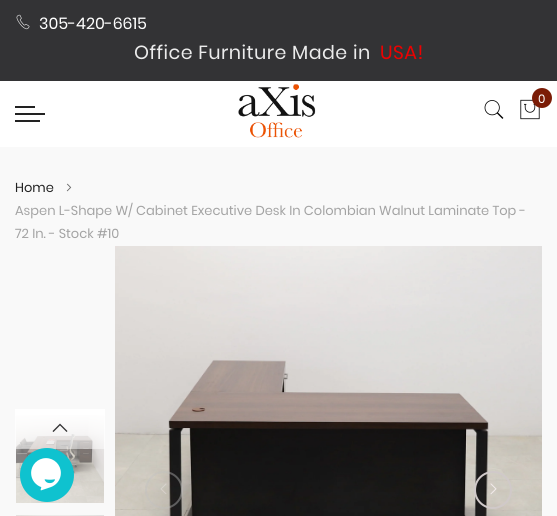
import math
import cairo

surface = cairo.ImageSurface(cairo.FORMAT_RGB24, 557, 516)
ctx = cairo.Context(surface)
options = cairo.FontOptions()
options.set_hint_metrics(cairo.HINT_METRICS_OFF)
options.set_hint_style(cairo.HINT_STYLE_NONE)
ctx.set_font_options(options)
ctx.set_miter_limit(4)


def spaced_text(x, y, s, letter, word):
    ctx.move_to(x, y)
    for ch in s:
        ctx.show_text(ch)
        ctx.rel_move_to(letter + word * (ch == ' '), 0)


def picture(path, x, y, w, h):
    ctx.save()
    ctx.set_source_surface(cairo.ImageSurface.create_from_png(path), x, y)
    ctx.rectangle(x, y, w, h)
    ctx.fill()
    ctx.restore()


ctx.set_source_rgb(0.973, 0.973, 0.973)
ctx.paint()
ctx.set_source_rgb(1, 1, 1)
ctx.rectangle(0, 81, 557, 66)
ctx.fill()
ctx.set_source_rgb(0.2, 0.2, 0.208)
ctx.rectangle(0, 0, 557, 81)
ctx.fill()
picture("img1.png", 16, 14, 14, 16)
ctx.select_font_face("Poppins")
ctx.set_font_size(16)
ctx.set_source_rgb(1, 1, 1)
ctx.move_to(39, 29)
ctx.show_text("305-420-6615")
ctx.set_font_size(19)
ctx.set_source_rgb(0.922, 0.922, 0.922)
spaced_text(134, 59, "Office Furniture Made in", 0.5, 0)
ctx.set_source_rgb(0.925, 0.004, 0.004)
spaced_text(380, 59, "USA!", 0.5, 0)
picture("img2.png", 238, 84, 78, 54)
picture("img3.png", 520, 99, 20, 21)
ctx.set_source_rgb(0.482, 0.11, 0.027)
ctx.arc(542, 98, 10, 0, 2 * math.pi)
ctx.fill()
ctx.set_font_size(12)
ctx.set_source_rgb(1, 1, 1)
ctx.move_to(538, 103)
ctx.show_text("0")
picture("img4.png", 484, 100, 20, 19)
ctx.set_source_rgb(0.133, 0.133, 0.133)
ctx.rectangle(15, 106, 20, 2)
ctx.fill()
ctx.rectangle(15, 113, 30, 2)
ctx.fill()
ctx.rectangle(15, 120, 25, 2)
ctx.fill()
ctx.set_font_size(13)
ctx.move_to(15, 192)
ctx.show_text("Home")
picture("img5.png", 66, 183, 6, 9)
ctx.set_source_rgb(0.639, 0.639, 0.639)
ctx.move_to(15, 215)
ctx.show_text("Aspen L-Shape W/ Cabinet Executive Desk In Colombian Walnut Laminate Top -")
ctx.move_to(15, 238)
ctx.show_text("72 In. - Stock #10")
picture("img7.png", 16, 415, 88, 88)
gradient = cairo.LinearGradient(60, 409, 60, 449)
gradient.add_color_stop_rgba(0, 1, 1, 1, 1)
gradient.add_color_stop_rgba(1, 1, 1, 1, 0.5)
ctx.set_source(gradient)
ctx.rectangle(15, 409, 90, 40)
ctx.fill()
picture("img6.png", 52, 423, 16, 9)
picture("img8.png", 16, 515, 88, 1)
picture("img9.png", 115, 246, 427, 270)
ctx.arc(164, 490, 18, 0, 2 * math.pi)
ctx.set_source_rgba(0.761, 0.761, 0.761, 0.4)
ctx.stroke()
picture("img10.png", 160, 483, 7, 11)
ctx.arc(493, 490, 18, 0, 2 * math.pi)
ctx.set_source_rgb(0.816, 0.788, 0.788)
ctx.stroke()
picture("img11.png", 490, 483, 7, 12)
ctx.set_source_rgb(0.059, 0.761, 0.812)
ctx.arc(47, 475, 27, 0, 2 * math.pi)
ctx.fill()
picture("img12.png", 31, 458, 30, 33)
surface.write_to_png("page.png")
